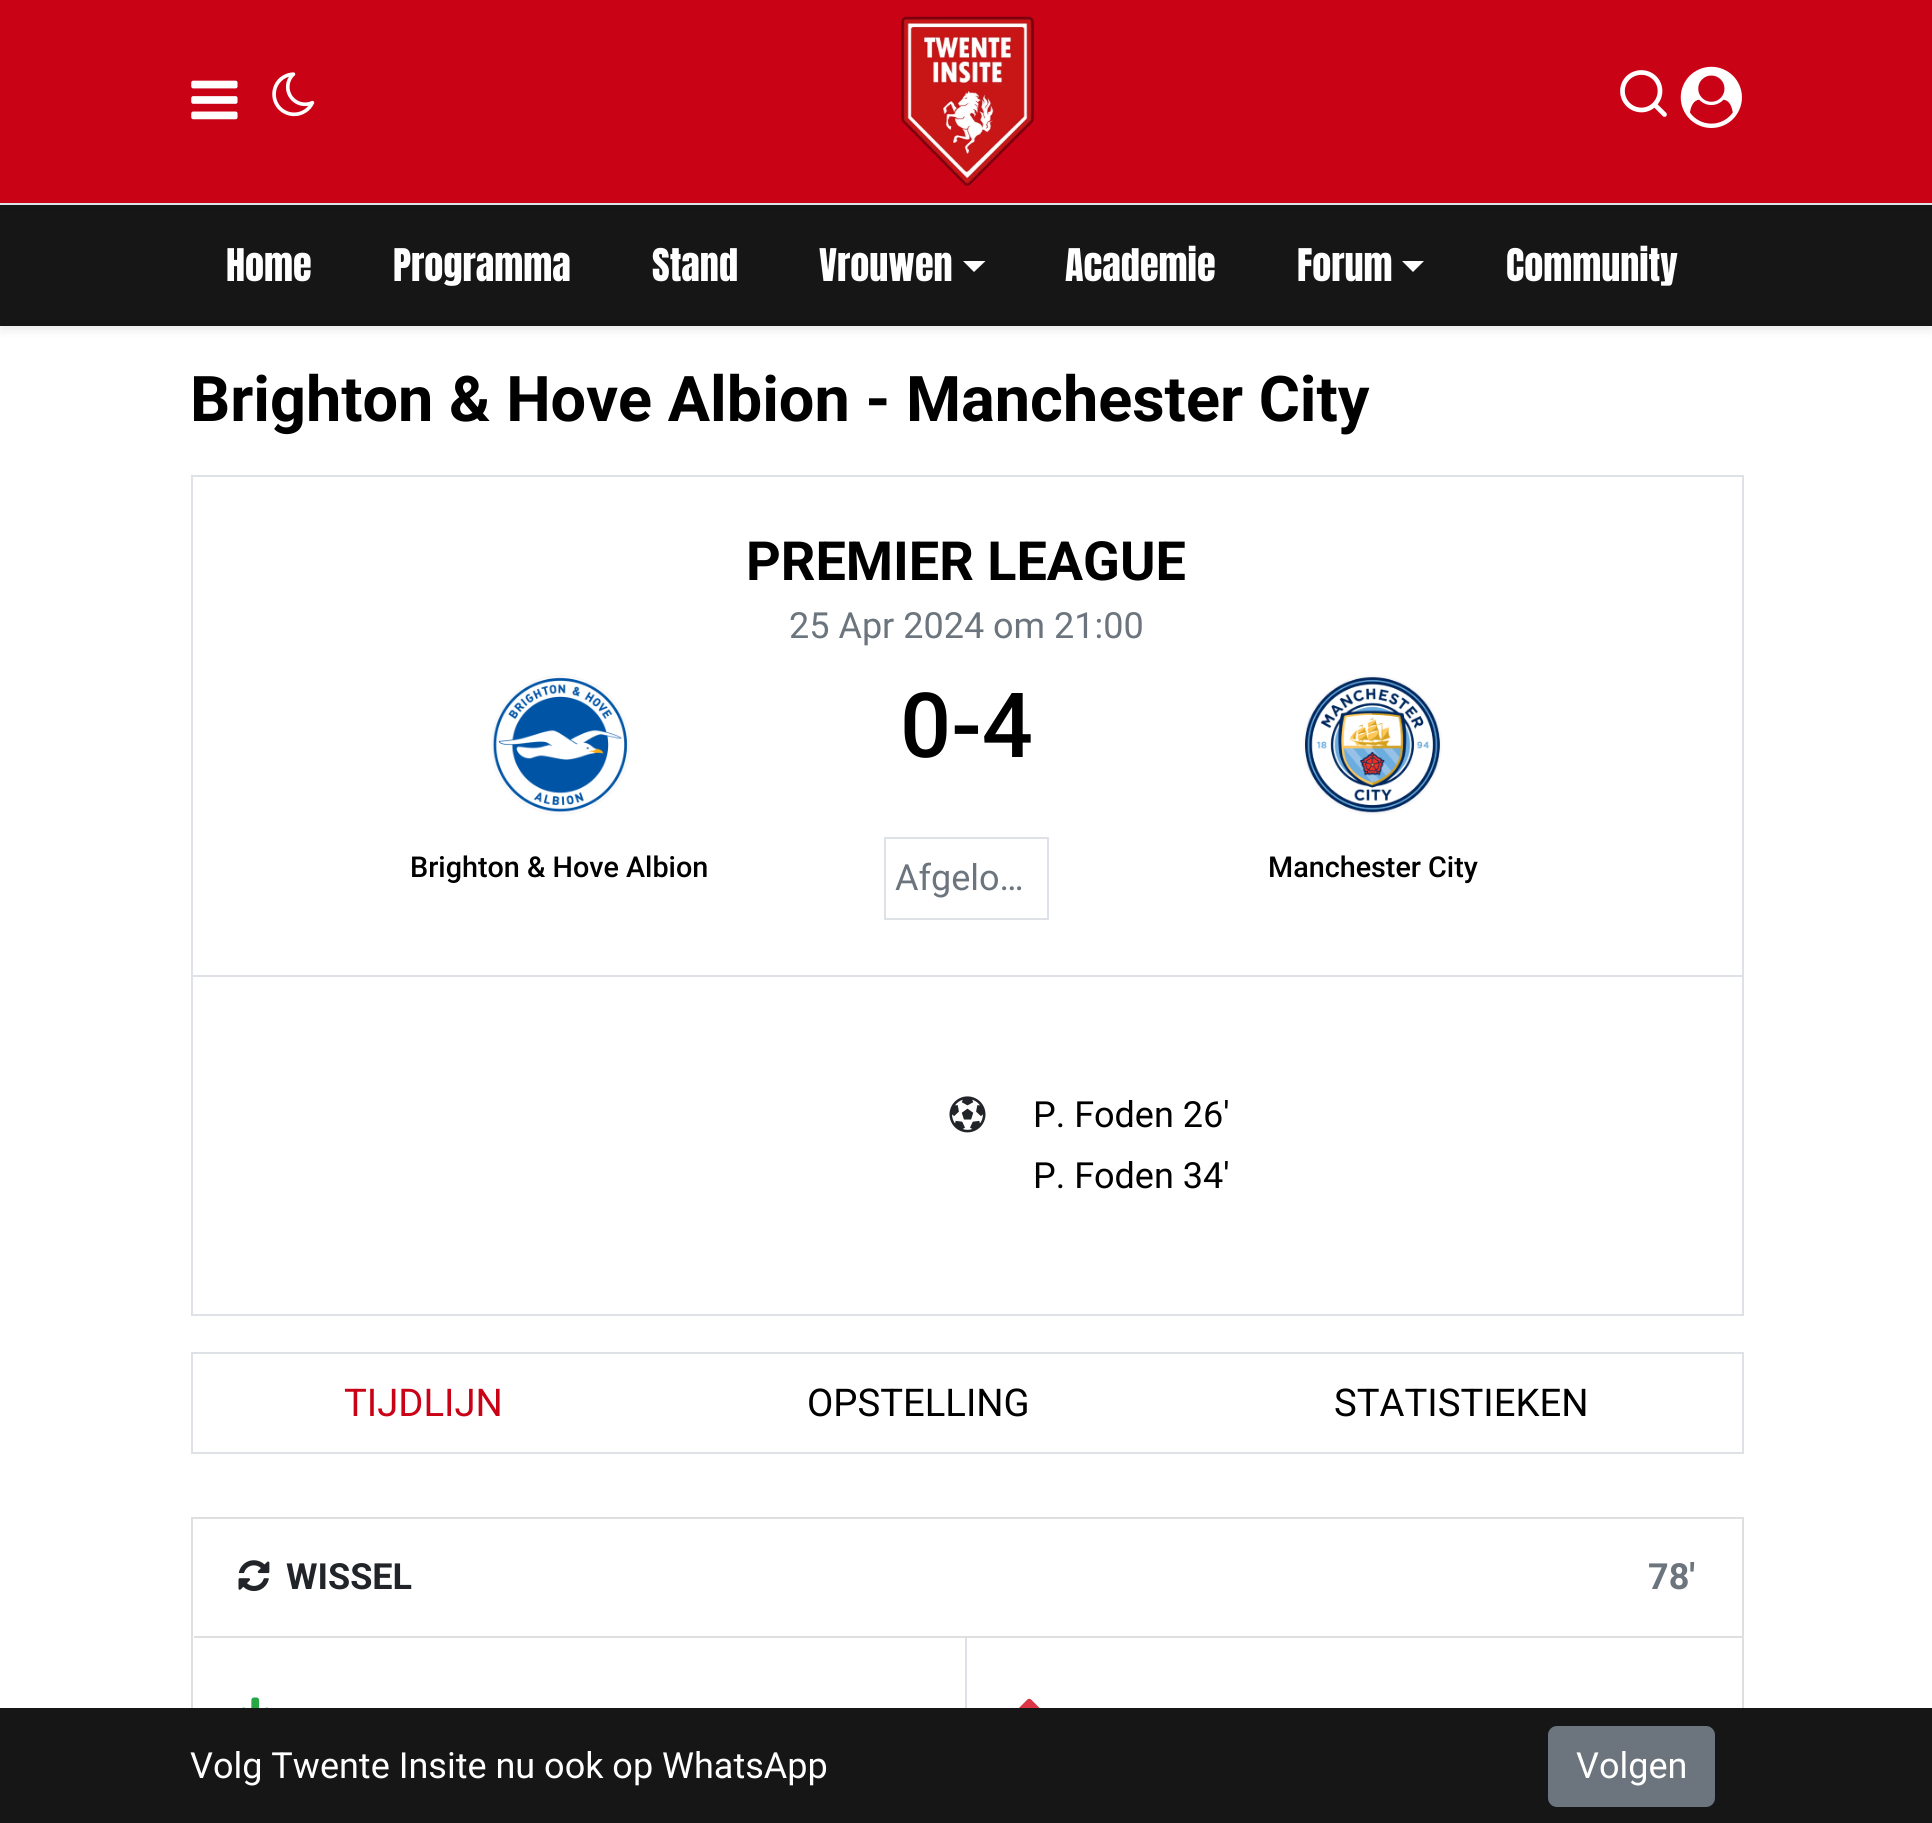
import math
import cairo

surface = cairo.ImageSurface(cairo.FORMAT_RGB24, 1932, 1823)
ctx = cairo.Context(surface)
options = cairo.FontOptions()
options.set_hint_metrics(cairo.HINT_METRICS_OFF)
options.set_hint_style(cairo.HINT_STYLE_NONE)
ctx.set_font_options(options)
ctx.set_miter_limit(4)


def round_rect(x, y, w, h, r):
    ctx.new_sub_path()
    for i, (u, v) in enumerate([(x + w - r, y + h - r), (x + r, y + h - r), (x + r, y + r), (x + w - r, y + r)]):
        ctx.arc(u, v, r, i * math.pi / 2, (i + 1) * math.pi / 2)
    ctx.close_path()


def shadow(x, y, w, h, r, blur, alpha):
    ctx.push_group_with_content(cairo.CONTENT_ALPHA)
    ctx.set_operator(cairo.OPERATOR_SOURCE)
    for i in range(15, -16, -2):
        e = blur * i / 6
        if min(w, h) + 2 * e > 0:
            ctx.set_source_rgba(0, 0, 0, alpha * math.erfc((i - 1) / 8.5) / 2)
            round_rect(x - e, y - e, w + 2 * e, h + 2 * e, max(0, min(r + e + blur * .6, min(w, h) / 2 + e)))
            ctx.fill()
    ctx.mask(ctx.pop_group())


def picture(path, x, y, w, h):
    ctx.save()
    ctx.set_source_surface(cairo.ImageSurface.create_from_png(path), x, y)
    ctx.rectangle(x, y, w, h)
    ctx.fill()
    ctx.restore()


ctx.set_source_rgb(1, 1, 1)
ctx.paint()
ctx.set_source_rgb(0, 0, 0)
shadow(0, 209, 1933, 122, 0, 4.5, 0.07)
ctx.set_source_rgb(0.086, 0.086, 0.086)
ctx.rectangle(0, 205, 1932, 121)
ctx.fill()
ctx.set_source_rgb(0, 0, 0)
shadow(0, 5, 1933, 204, 0, 4.5, 0.07)
ctx.set_source_rgb(0.792, 0.008, 0.086)
ctx.rectangle(0, 0, 1932, 203)
ctx.fill()
ctx.set_source_rgb(0.871, 0.886, 0.902)
ctx.rectangle(0, 203, 1932, 2)
ctx.fill()
picture("img1.png", 191, 80, 47, 40)
picture("img2.png", 272, 72, 43, 45)
picture("img3.png", 901, 16, 134, 170)
ctx.new_path()
ctx.move_to(1641.5, 110)
ctx.curve_to(1651.5, 110, 1660, 101.5, 1660, 91)
ctx.curve_to(1660, 80.5, 1651.5, 72.5, 1641.5, 72.5)
ctx.curve_to(1631, 72.5, 1622.5, 80.5, 1622.5, 91)
ctx.curve_to(1622.5, 101.5, 1631, 110, 1641.5, 110)
ctx.close_path()
ctx.move_to(1664.5, 114.5)
ctx.line_to(1654.5, 104.5)
ctx.set_source_rgb(1, 1, 1)
ctx.set_line_width(4.7)
ctx.set_line_cap(cairo.LINE_CAP_ROUND)
ctx.set_line_join(cairo.LINE_JOIN_ROUND)
ctx.stroke()
picture("img4.png", 1680, 66, 62, 62)
ctx.select_font_face("Anton")
ctx.set_font_size(38.25)
ctx.move_to(226, 281)
ctx.show_text("Home")
ctx.move_to(393, 281)
ctx.show_text("Programma")
ctx.move_to(652, 281)
ctx.show_text("Stand")
ctx.move_to(819, 281)
ctx.show_text("Vrouwen")
ctx.new_path()
ctx.move_to(963, 261)
ctx.line_to(985.5, 261)
ctx.line_to(974, 272)
ctx.close_path()
ctx.fill()
ctx.move_to(1065, 281)
ctx.show_text("Academie")
ctx.move_to(1297, 281)
ctx.show_text("Forum")
ctx.new_path()
ctx.move_to(1402, 261)
ctx.line_to(1424, 261)
ctx.line_to(1413, 272)
ctx.close_path()
ctx.fill()
ctx.move_to(1506, 281)
ctx.show_text("Community")
ctx.select_font_face("Roboto", cairo.FONT_SLANT_NORMAL, cairo.FONT_WEIGHT_BOLD)
ctx.set_font_size(63)
ctx.set_source_rgb(0, 0, 0)
ctx.move_to(190, 421)
ctx.show_text("Brighton & Hove Albion - Manchester City")
ctx.rectangle(192, 476, 1551, 500)
ctx.set_source_rgb(0.871, 0.886, 0.902)
ctx.set_line_width(2)
ctx.set_line_cap(cairo.LINE_CAP_BUTT)
ctx.set_line_join(cairo.LINE_JOIN_MITER)
ctx.stroke()
ctx.set_font_size(54)
ctx.set_source_rgb(0, 0, 0)
ctx.move_to(746, 580)
ctx.show_text("PREMIER LEAGUE")
ctx.select_font_face("Roboto")
ctx.set_font_size(36)
ctx.set_source_rgb(0.424, 0.459, 0.49)
ctx.move_to(789, 638)
ctx.show_text("25 Apr 2024 om 21:00")
round_rect(492, 676, 137, 138, 68.5)
ctx.set_source_rgb(0.973, 0.976, 0.98)
ctx.stroke()
picture("img5.png", 492, 677, 136, 136)
ctx.select_font_face("Roboto Medium")
ctx.set_font_size(28.75)
ctx.set_source_rgb(0, 0, 0)
ctx.move_to(410, 877)
ctx.show_text("Brighton & Hove Albion")
ctx.set_font_size(90)
ctx.move_to(900, 757)
ctx.show_text("0-4")
ctx.rectangle(885, 838, 163, 81)
ctx.set_source_rgb(0.871, 0.886, 0.902)
ctx.stroke()
ctx.select_font_face("Roboto")
ctx.set_font_size(36)
ctx.set_source_rgb(0.424, 0.459, 0.49)
ctx.move_to(895, 890)
ctx.show_text("Afgelo…")
round_rect(1304, 676, 137, 138, 68.5)
ctx.set_source_rgb(0.973, 0.976, 0.98)
ctx.stroke()
picture("img6.png", 1305, 677, 135, 136)
ctx.select_font_face("Roboto Medium")
ctx.set_font_size(28.75)
ctx.set_source_rgb(0, 0, 0)
ctx.move_to(1268, 877)
ctx.show_text("Manchester City")
ctx.set_source_rgb(0.871, 0.886, 0.902)
ctx.rectangle(1742, 977, 2, 339)
ctx.fill()
ctx.rectangle(191, 1314, 1553, 2)
ctx.fill()
ctx.rectangle(191, 977, 2, 339)
ctx.fill()
picture("img7.png", 949, 1096, 37, 37)
ctx.select_font_face("Roboto")
ctx.set_font_size(36)
ctx.set_source_rgb(0, 0, 0)
ctx.move_to(1033, 1127)
ctx.show_text("P. Foden 26'")
ctx.move_to(1033, 1188)
ctx.show_text("P. Foden 34'")
ctx.rectangle(192, 1353, 1551, 100)
ctx.set_source_rgb(0.871, 0.886, 0.902)
ctx.stroke()
ctx.set_font_size(38.25)
ctx.set_source_rgb(0.792, 0.008, 0.086)
ctx.move_to(344, 1416)
ctx.show_text("TIJDLIJN")
ctx.set_source_rgb(0, 0, 0)
ctx.move_to(807, 1416)
ctx.show_text("OPSTELLING")
ctx.move_to(1334, 1416)
ctx.show_text("STATISTIEKEN")
ctx.rectangle(192, 1518, 1551, 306)
ctx.set_source_rgb(0.875, 0.875, 0.875)
ctx.stroke()
ctx.rectangle(194, 1636, 1548, 2)
ctx.fill()
picture("img8.png", 238, 1560, 32, 32)
ctx.select_font_face("Roboto", cairo.FONT_SLANT_NORMAL, cairo.FONT_WEIGHT_BOLD)
ctx.set_font_size(36)
ctx.set_source_rgb(0.129, 0.145, 0.161)
ctx.move_to(286, 1589)
ctx.show_text("WISSEL")
ctx.set_source_rgb(0.424, 0.459, 0.49)
ctx.move_to(1648, 1589)
ctx.show_text("78'")
ctx.set_source_rgb(0.871, 0.886, 0.902)
ctx.rectangle(965, 1638, 2, 70)
ctx.fill()
picture("img9.png", 242, 1697, 26, 11)
picture("img10.png", 1019, 1698, 21, 10)
ctx.set_source_rgb(0.086, 0.086, 0.086)
ctx.rectangle(0, 1708, 1932, 115)
ctx.fill()
ctx.select_font_face("Roboto")
ctx.set_source_rgb(1, 1, 1)
ctx.move_to(190, 1778)
ctx.show_text("Volg Twente Insite nu ook op WhatsApp")
ctx.set_source_rgb(0.424, 0.459, 0.49)
round_rect(1548, 1726, 167, 81, 9)
ctx.fill()
ctx.set_source_rgb(1, 1, 1)
ctx.move_to(1576, 1778)
ctx.show_text("Volgen")
surface.write_to_png("page.png")
